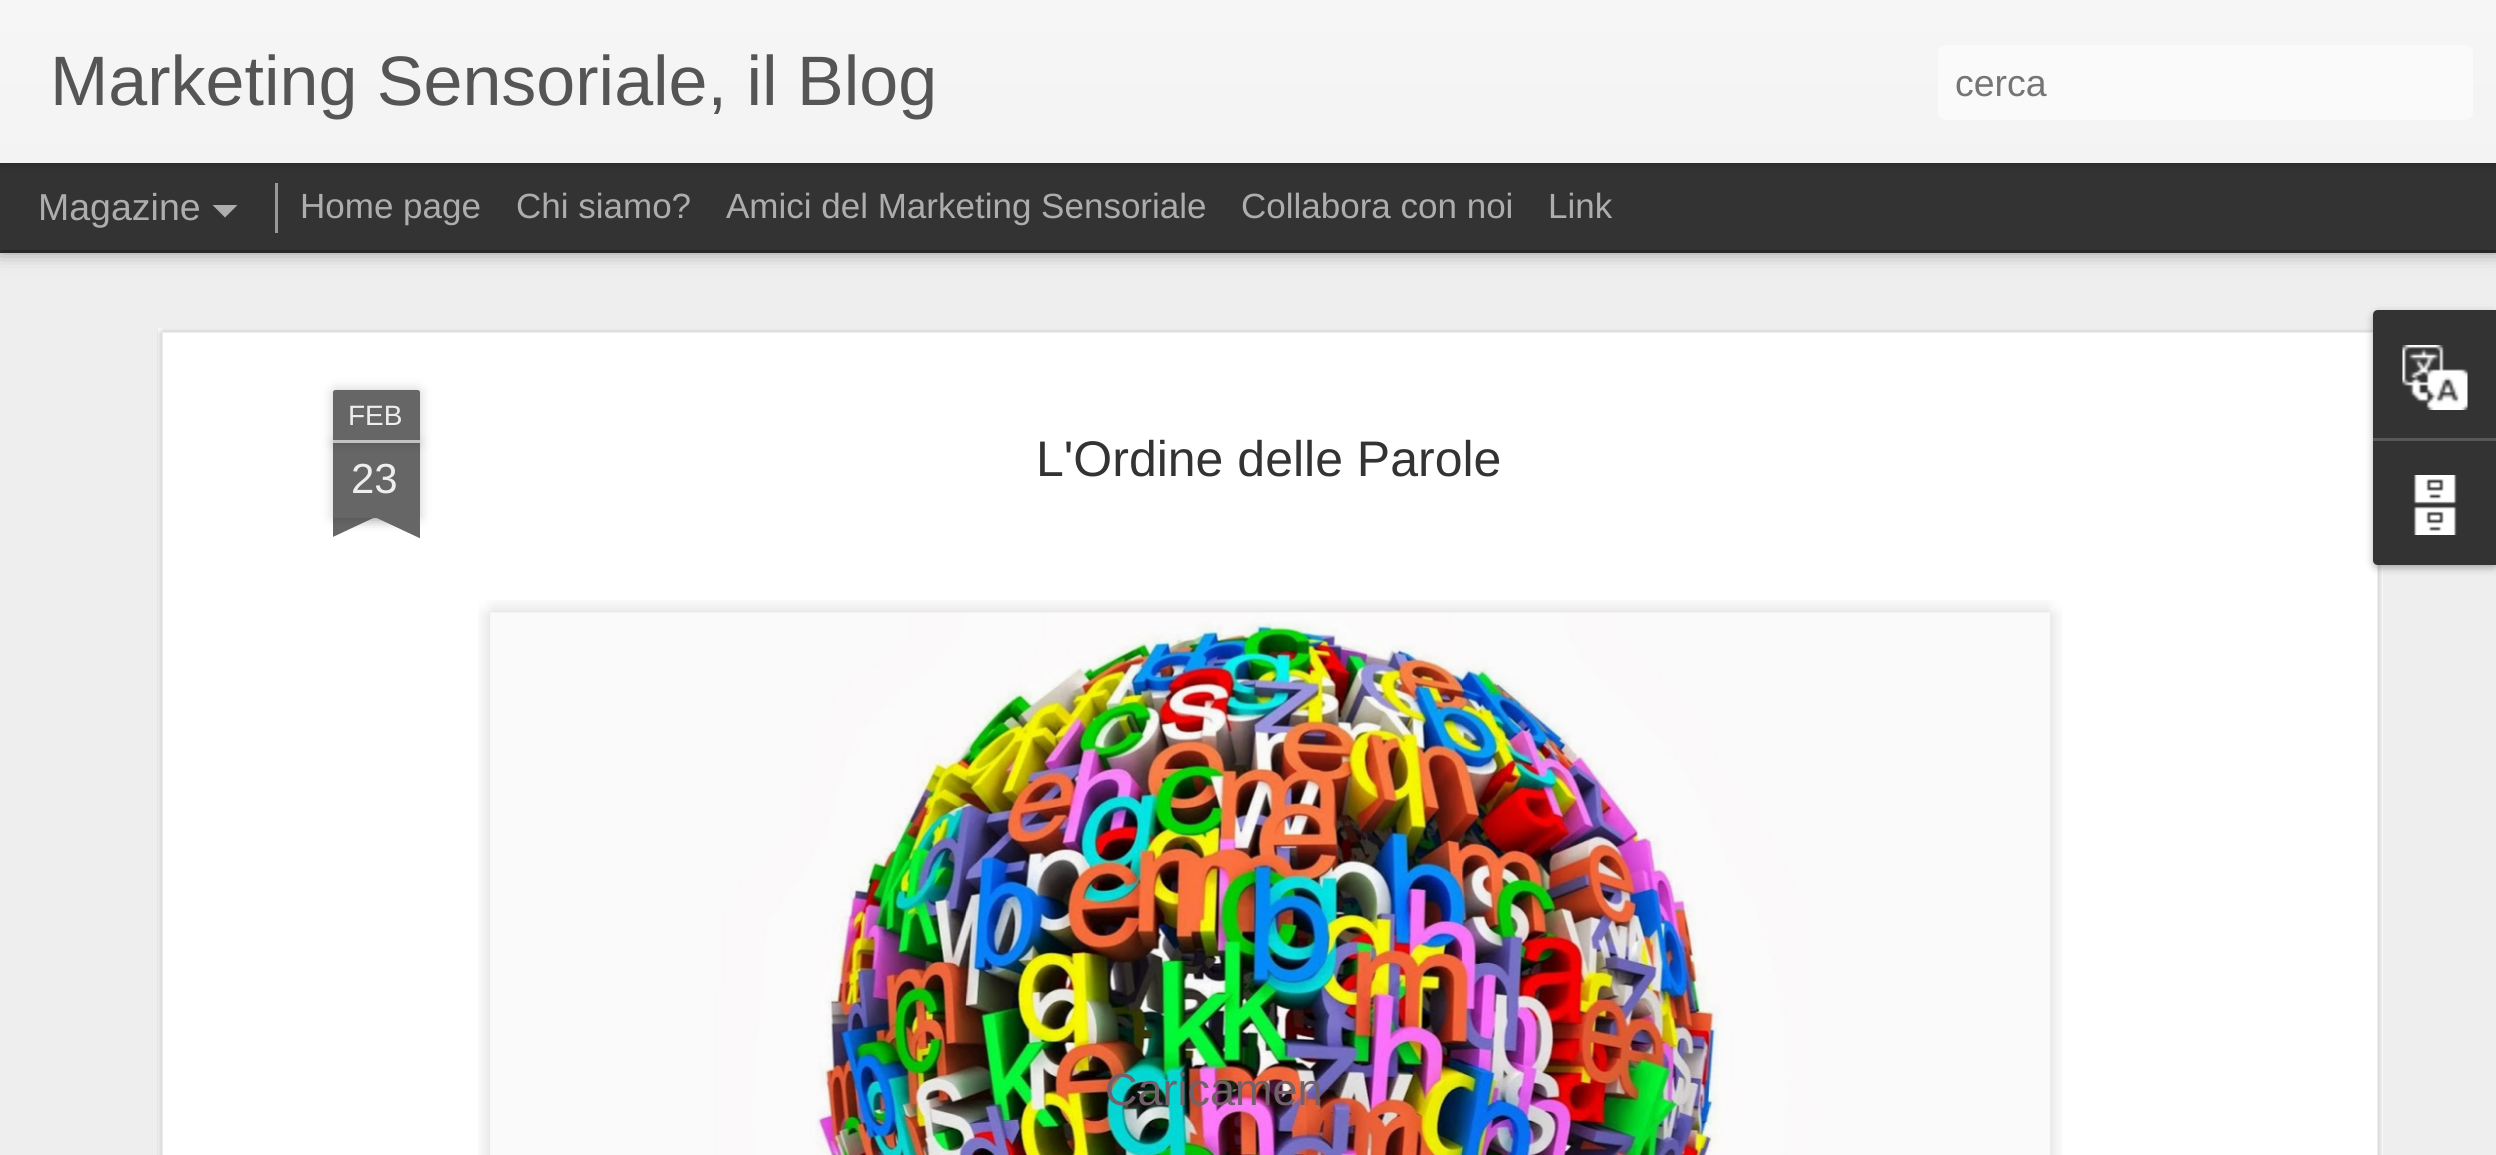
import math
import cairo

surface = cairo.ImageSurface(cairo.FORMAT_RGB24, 2496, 1155)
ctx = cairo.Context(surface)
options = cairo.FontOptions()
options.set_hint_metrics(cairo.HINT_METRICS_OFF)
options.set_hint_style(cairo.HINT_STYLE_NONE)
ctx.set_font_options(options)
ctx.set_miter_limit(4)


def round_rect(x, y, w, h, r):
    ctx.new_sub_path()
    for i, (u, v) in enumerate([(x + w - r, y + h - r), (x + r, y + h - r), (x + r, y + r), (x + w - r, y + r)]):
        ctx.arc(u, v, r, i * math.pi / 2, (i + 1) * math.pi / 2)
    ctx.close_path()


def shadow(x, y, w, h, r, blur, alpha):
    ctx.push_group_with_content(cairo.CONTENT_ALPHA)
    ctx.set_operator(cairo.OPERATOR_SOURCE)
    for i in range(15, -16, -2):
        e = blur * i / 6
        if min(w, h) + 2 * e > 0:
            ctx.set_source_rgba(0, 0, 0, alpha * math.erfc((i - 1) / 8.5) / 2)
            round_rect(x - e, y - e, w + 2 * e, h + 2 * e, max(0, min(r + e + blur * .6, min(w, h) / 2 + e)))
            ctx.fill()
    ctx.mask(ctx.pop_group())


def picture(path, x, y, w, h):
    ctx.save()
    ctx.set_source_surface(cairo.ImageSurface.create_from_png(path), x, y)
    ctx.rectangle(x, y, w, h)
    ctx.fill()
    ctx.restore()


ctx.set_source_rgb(0.2, 0.2, 0.2)
ctx.paint()
ctx.set_source_rgb(0.933, 0.933, 0.933)
ctx.rectangle(0, 253, 2496, 902)
ctx.fill()
ctx.set_source_rgb(0, 0, 0)
shadow(0, 163, 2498, 87, 0, 10, 0.5)
ctx.set_source_rgb(0.2, 0.2, 0.2)
ctx.rectangle(0, 163, 2496, 87)
ctx.fill()
ctx.set_source_rgb(0, 0, 0)
shadow(0, 0, 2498, 163, 0, 6, 0.3)
gradient = cairo.LinearGradient(0, 0, 0, 163)
gradient.add_color_stop_rgba(0, 0.965, 0.965, 0.965, 1)
gradient.add_color_stop_rgba(1, 0.953, 0.953, 0.953, 1)
ctx.set_source(gradient)
ctx.rectangle(0, 0, 2496, 163)
ctx.fill()
ctx.select_font_face("Liberation Sans")
ctx.set_font_size(70)
ctx.set_source_rgb(0.333, 0.333, 0.333)
ctx.move_to(50, 105)
ctx.show_text("Marketing Sensoriale, il Blog")
ctx.set_source_rgb(0.98, 0.98, 0.98)
round_rect(1938, 45, 535, 75, 8)
ctx.fill()
ctx.set_font_size(37.5)
ctx.set_source_rgb(0.459, 0.459, 0.459)
ctx.move_to(1955, 96)
ctx.show_text("cerca")
ctx.set_source_rgb(0.678, 0.678, 0.678)
ctx.move_to(38, 220)
ctx.show_text("Magazine")
ctx.new_path()
ctx.move_to(212.5, 205)
ctx.line_to(237.5, 205)
ctx.line_to(225, 217.5)
ctx.close_path()
ctx.fill()
ctx.set_source_rgb(0.6, 0.6, 0.6)
ctx.rectangle(275, 183, 3, 50)
ctx.fill()
ctx.set_font_size(35)
ctx.set_source_rgb(0.678, 0.678, 0.678)
ctx.move_to(300, 218)
ctx.show_text("Home page")
ctx.move_to(516, 218)
ctx.show_text("Chi siamo?")
ctx.move_to(726, 218)
ctx.show_text("Amici del Marketing Sensoriale")
ctx.move_to(1241, 218)
ctx.show_text("Collabora con noi")
ctx.move_to(1548, 218)
ctx.show_text("Link")
ctx.set_source_rgb(1, 1, 1)
ctx.rectangle(158, 328, 2225, 827)
ctx.fill()
picture("img1.png", 157, 328, 2226, 827)
ctx.set_source_rgb(0, 0, 0)
shadow(333, 443, 87, 75, 0, 6, 0.2)
ctx.set_source_rgb(0.4, 0.4, 0.4)
ctx.rectangle(333, 443, 87, 75)
ctx.fill()
ctx.set_source_rgb(0, 0, 0)
shadow(333, 390, 87, 53, 2.5, 6, 0.2)
ctx.set_source_rgb(0.4, 0.4, 0.4)
ctx.new_path()
ctx.move_to(335.5, 390)
ctx.line_to(417.5, 390)
ctx.curve_to(419, 390, 420, 391, 420, 392.5)
ctx.line_to(420, 443)
ctx.line_to(333, 443)
ctx.line_to(333, 392.5)
ctx.curve_to(333, 391, 334, 390, 335.5, 390)
ctx.close_path()
ctx.fill()
ctx.set_source_rgb(0.761, 0.761, 0.761)
ctx.rectangle(333, 440, 87, 3)
ctx.fill()
ctx.set_font_size(28)
ctx.set_source_rgb(0.933, 0.933, 0.933)
ctx.move_to(348, 425)
ctx.show_text("FEB")
ctx.set_font_size(42)
ctx.move_to(351, 493)
ctx.show_text("23")
ctx.save()
ctx.rectangle(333, 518, 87, 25)
ctx.clip()
ctx.set_source_rgb(0, 0, 0)
shadow(310, 493, 125, 25, 0, 6.5, 0.2)
ctx.restore()
ctx.save()
ctx.rectangle(333, 518, 87, 25)
ctx.clip()
ctx.set_source_rgb(0.4, 0.4, 0.4)
ctx.new_path()
ctx.move_to(309, 520)
ctx.line_to(423, 467)
ctx.line_to(433, 490)
ctx.line_to(320, 543)
ctx.close_path()
ctx.fill()
ctx.restore()
ctx.save()
ctx.rectangle(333, 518, 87, 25)
ctx.clip()
ctx.set_source_rgb(0, 0, 0)
shadow(318, 493, 125, 25, 0, 6.5, 0.2)
ctx.restore()
ctx.save()
ctx.rectangle(333, 518, 87, 25)
ctx.clip()
ctx.set_source_rgb(0.4, 0.4, 0.4)
ctx.new_path()
ctx.move_to(327, 467)
ctx.line_to(441, 520)
ctx.line_to(430, 543)
ctx.line_to(317, 490)
ctx.close_path()
ctx.fill()
ctx.restore()
ctx.set_font_size(50)
ctx.set_source_rgb(0.2, 0.2, 0.2)
ctx.move_to(1036, 476)
ctx.show_text("L'Ordine delle Parole")
picture("img2.png", 478, 600, 1584, 555)
picture("img3.png", 490, 612, 1561, 543)
ctx.set_source_rgb(0, 0, 0)
shadow(2373, 313, 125, 255, 5, 4, 0.3)
ctx.set_source_rgb(0.2, 0.2, 0.2)
ctx.new_path()
ctx.move_to(2378, 310)
ctx.line_to(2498, 310)
ctx.line_to(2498, 438)
ctx.line_to(2373, 438)
ctx.line_to(2373, 315)
ctx.curve_to(2373, 312, 2375, 310, 2378, 310)
ctx.close_path()
ctx.fill()
picture("img4.png", 2402, 345, 66, 65)
ctx.new_path()
ctx.move_to(2373, 438)
ctx.line_to(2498, 438)
ctx.line_to(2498, 565)
ctx.line_to(2378, 565)
ctx.curve_to(2375, 565, 2373, 563, 2373, 560)
ctx.close_path()
ctx.fill()
ctx.set_source_rgb(0.345, 0.345, 0.345)
ctx.rectangle(2373, 438, 123, 3)
ctx.fill()
picture("img5.png", 2413, 475, 44, 60)
ctx.set_font_size(45)
ctx.set_source_rgb(0.447, 0.38, 0.412)
ctx.move_to(1105, 1105)
ctx.show_text("Caricamen")
surface.write_to_png("page.png")
